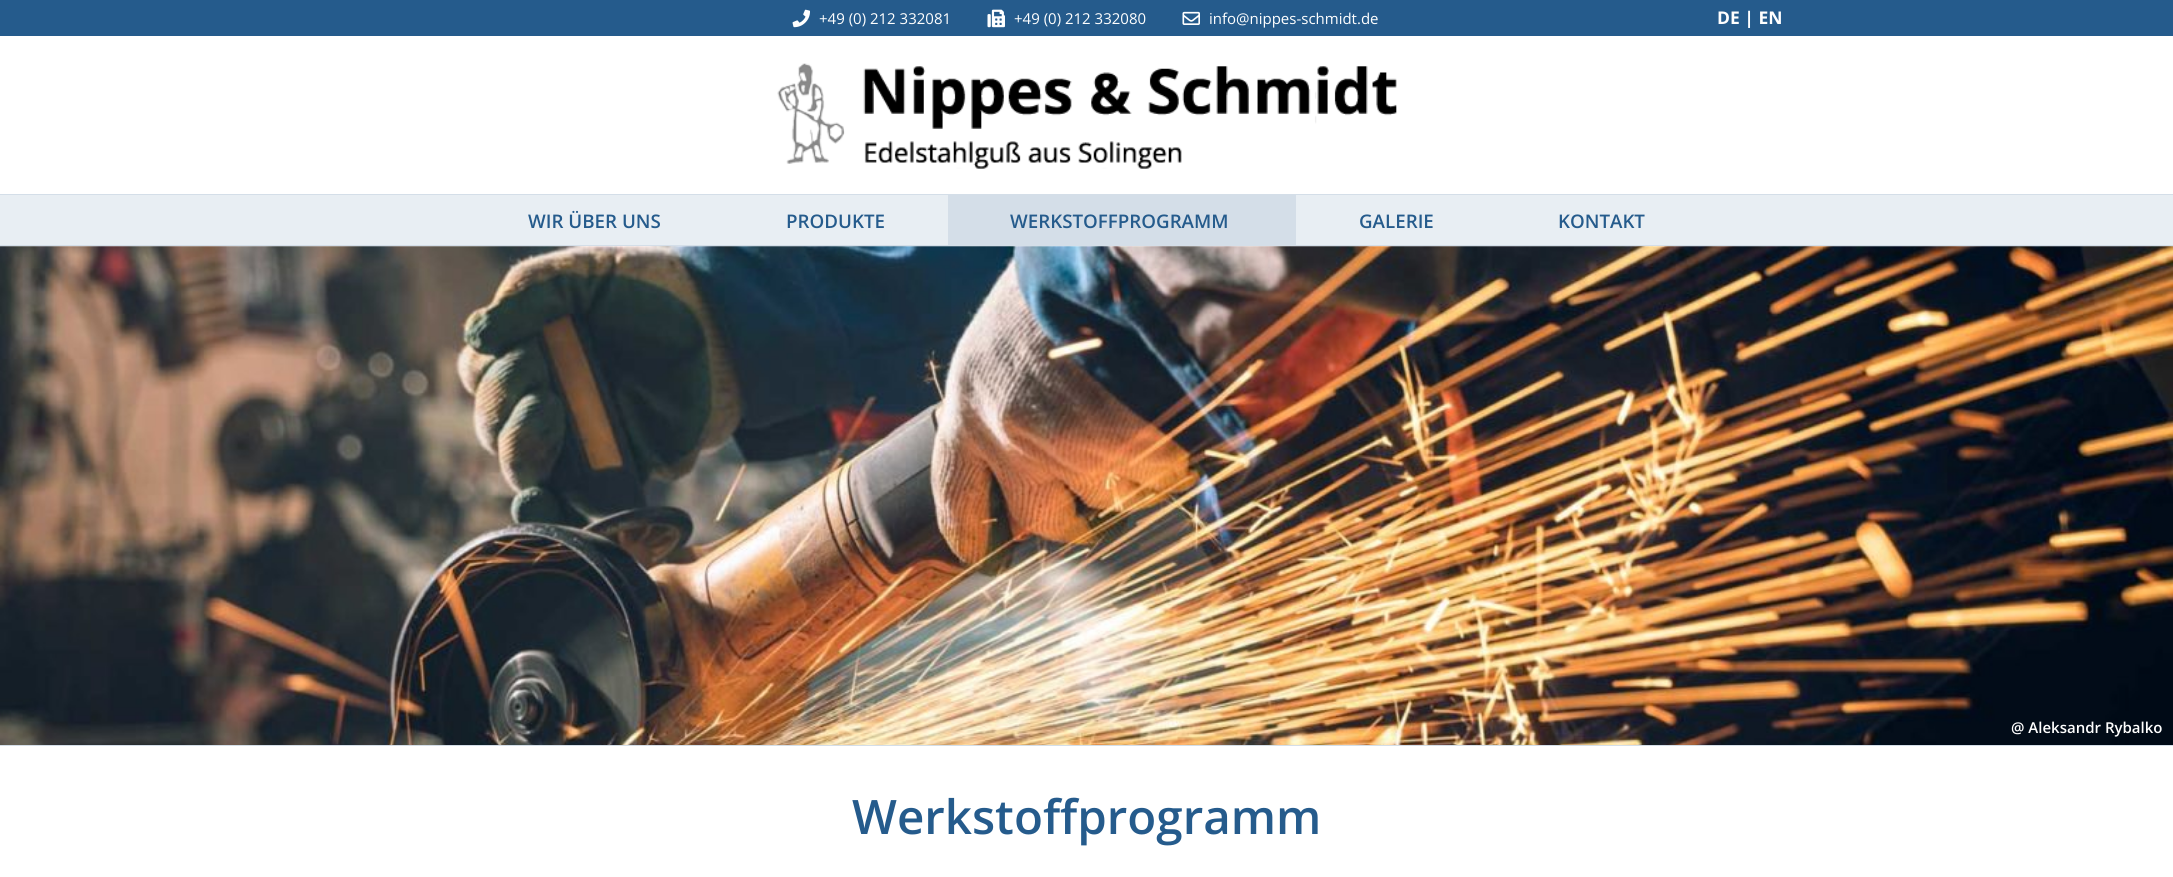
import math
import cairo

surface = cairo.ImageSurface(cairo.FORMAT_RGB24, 2173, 877)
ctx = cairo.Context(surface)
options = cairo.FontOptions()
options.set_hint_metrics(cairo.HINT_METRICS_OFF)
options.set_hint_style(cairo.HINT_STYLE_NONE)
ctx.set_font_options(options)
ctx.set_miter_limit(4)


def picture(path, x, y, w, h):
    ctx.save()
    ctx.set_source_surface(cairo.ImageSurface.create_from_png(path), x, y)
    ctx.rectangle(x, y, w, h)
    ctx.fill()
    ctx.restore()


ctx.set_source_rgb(1, 1, 1)
ctx.paint()
ctx.set_source_rgb(0.145, 0.357, 0.549)
ctx.rectangle(0, 0, 2173, 36)
ctx.fill()
picture("img1.png", 792, 9, 18, 19)
ctx.select_font_face("Open Sans")
ctx.set_font_size(15)
ctx.set_source_rgb(1, 1, 1)
ctx.move_to(819, 24)
ctx.show_text("+49 (0) 212 332081")
picture("img2.png", 987, 9, 18, 19)
ctx.move_to(1014, 24)
ctx.show_text("+49 (0) 212 332080")
picture("img3.png", 1182, 11, 18, 14)
ctx.move_to(1209, 24)
ctx.show_text("info@nippes-schmidt.de")
ctx.select_font_face("Open Sans", cairo.FONT_SLANT_NORMAL, cairo.FONT_WEIGHT_BOLD)
ctx.set_font_size(17.5)
ctx.move_to(1717, 24)
ctx.show_text("DE | EN")
picture("img4.png", 777, 63, 620, 106)
ctx.set_source_rgb(0.91, 0.933, 0.953)
ctx.rectangle(0, 195, 2173, 50)
ctx.fill()
ctx.set_source_rgb(0.831, 0.871, 0.91)
ctx.rectangle(0, 194, 2173, 1)
ctx.fill()
ctx.rectangle(0, 245, 2173, 1)
ctx.fill()
ctx.select_font_face("Open Sans SemiBold")
ctx.set_font_size(18.75)
ctx.set_source_rgb(0.145, 0.357, 0.549)
ctx.move_to(528, 228)
ctx.show_text("WIR ÜBER UNS")
ctx.move_to(786, 228)
ctx.show_text("PRODUKTE")
ctx.set_source_rgb(0.831, 0.871, 0.91)
ctx.rectangle(948, 195, 348, 50)
ctx.fill()
ctx.set_source_rgb(0.145, 0.357, 0.549)
ctx.move_to(1010, 228)
ctx.show_text("WERKSTOFFPROGRAMM")
ctx.move_to(1359, 228)
ctx.show_text("GALERIE")
ctx.move_to(1558, 228)
ctx.show_text("KONTAKT")
ctx.set_source_rgb(0.831, 0.871, 0.91)
ctx.rectangle(0, 745, 2173, 1)
ctx.fill()
picture("img5.png", 0, 246, 2173, 499)
ctx.set_font_size(15)
ctx.set_source_rgb(1, 1, 1)
ctx.move_to(2011, 733)
ctx.show_text("@ Aleksandr Rybalko")
ctx.set_font_size(47.5)
ctx.set_source_rgb(0.145, 0.357, 0.549)
ctx.move_to(852, 834)
ctx.show_text("Werkstoffprogramm")
surface.write_to_png("page.png")
